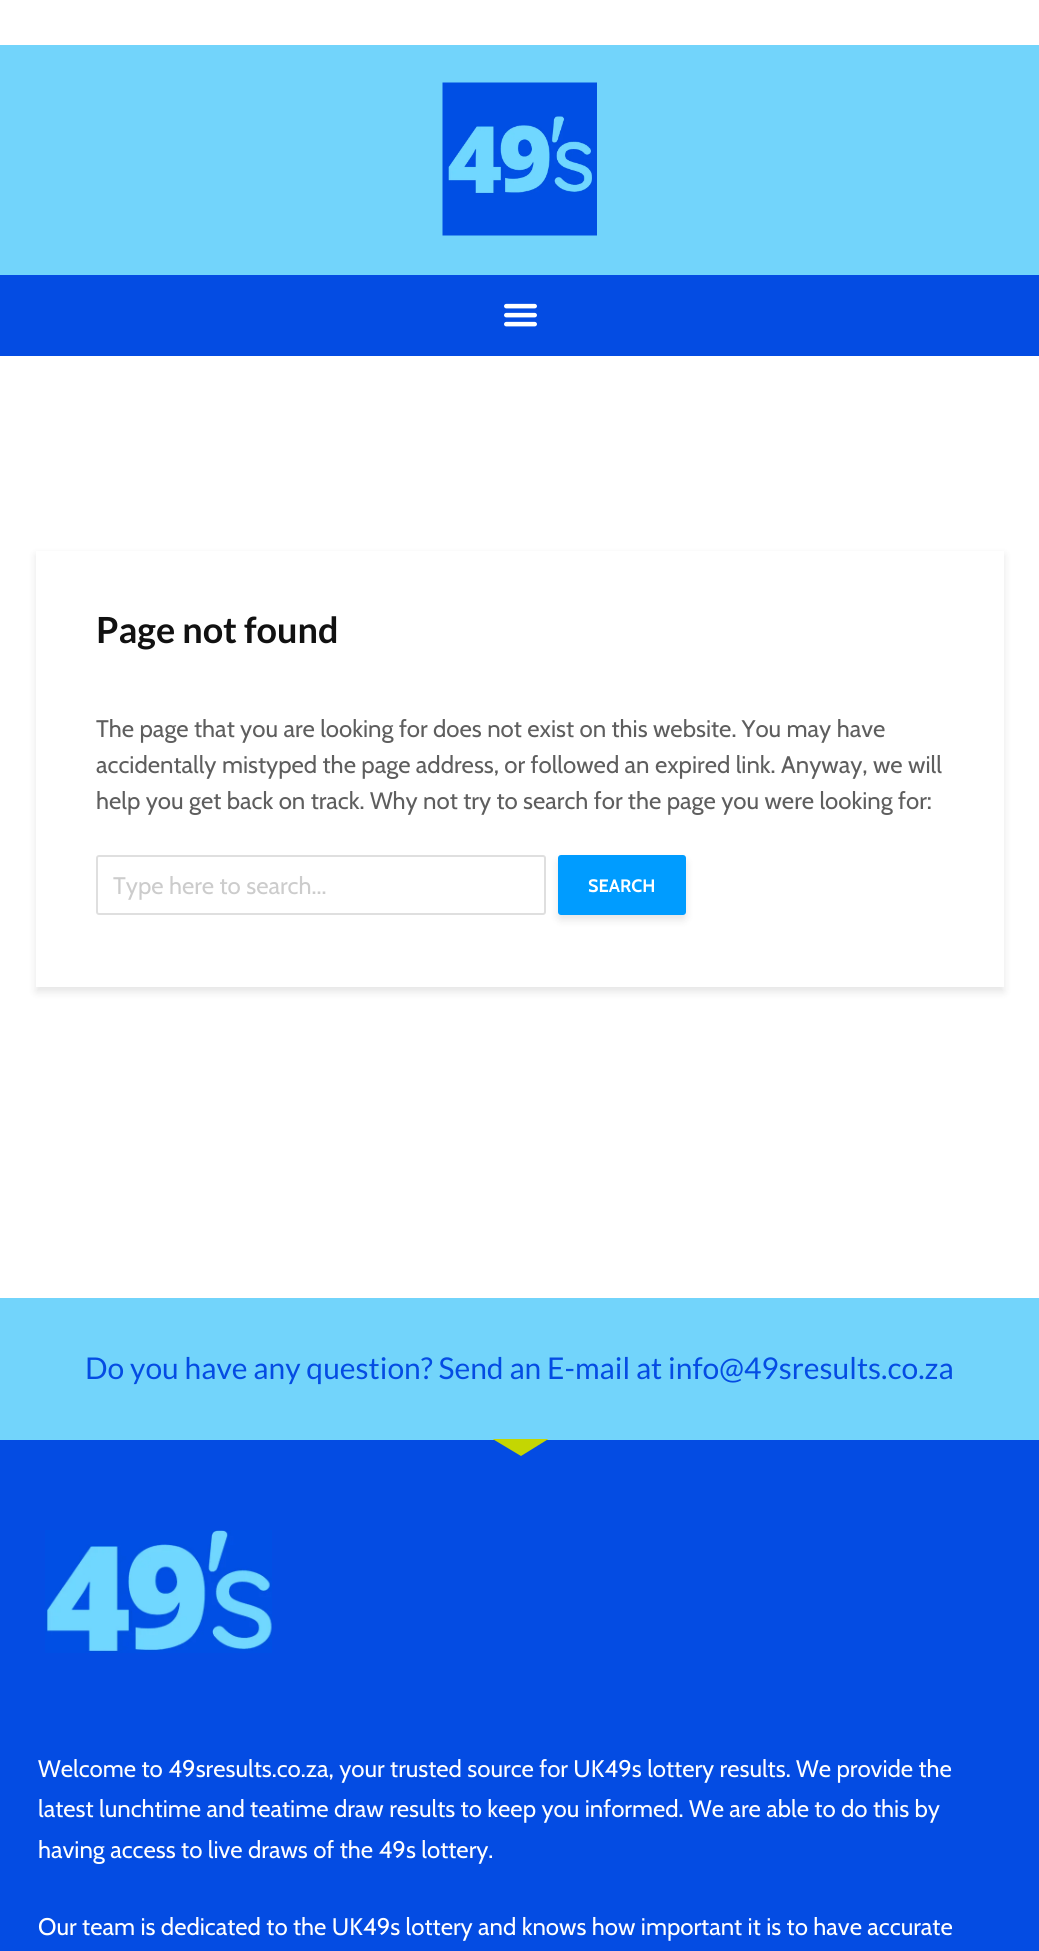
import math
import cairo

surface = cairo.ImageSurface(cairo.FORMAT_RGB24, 1039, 1951)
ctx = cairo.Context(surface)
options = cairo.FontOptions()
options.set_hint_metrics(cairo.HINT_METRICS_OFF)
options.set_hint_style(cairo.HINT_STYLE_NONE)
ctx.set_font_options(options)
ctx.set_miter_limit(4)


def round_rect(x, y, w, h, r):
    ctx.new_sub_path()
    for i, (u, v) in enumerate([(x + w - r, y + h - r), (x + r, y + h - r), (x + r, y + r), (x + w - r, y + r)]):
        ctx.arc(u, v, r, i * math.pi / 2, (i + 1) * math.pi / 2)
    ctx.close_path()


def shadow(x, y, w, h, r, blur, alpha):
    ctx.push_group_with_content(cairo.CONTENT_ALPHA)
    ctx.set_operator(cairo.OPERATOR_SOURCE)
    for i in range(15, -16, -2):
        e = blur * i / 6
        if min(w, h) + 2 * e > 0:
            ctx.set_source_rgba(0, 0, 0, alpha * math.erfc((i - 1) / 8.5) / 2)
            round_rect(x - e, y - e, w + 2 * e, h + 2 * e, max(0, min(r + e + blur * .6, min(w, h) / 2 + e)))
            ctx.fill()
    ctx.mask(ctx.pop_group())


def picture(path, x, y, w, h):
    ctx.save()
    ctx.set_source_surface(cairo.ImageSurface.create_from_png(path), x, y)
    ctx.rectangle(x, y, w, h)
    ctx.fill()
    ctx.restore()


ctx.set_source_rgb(1, 1, 1)
ctx.paint()
ctx.set_source_rgb(0.447, 0.831, 0.984)
ctx.rectangle(0, 45, 1039, 230)
ctx.fill()
picture("img1.png", 442, 82, 155, 154)
ctx.set_source_rgb(0.016, 0.298, 0.89)
ctx.rectangle(0, 275, 1039, 81)
ctx.fill()
picture("img2.png", 504, 303, 33, 24)
ctx.set_source_rgb(0, 0.004, 0.004)
shadow(36, 555, 968, 437, 0, 4, 0.1)
ctx.set_source_rgb(1, 1, 1)
ctx.rectangle(36, 551, 968, 436)
ctx.fill()
ctx.select_font_face("Lato", cairo.FONT_SLANT_NORMAL, cairo.FONT_WEIGHT_BOLD)
ctx.set_font_size(36)
ctx.set_source_rgb(0.067, 0.067, 0.067)
ctx.move_to(96, 643)
ctx.show_text("Page not found")
ctx.select_font_face("Cabin")
ctx.set_font_size(24)
ctx.set_source_rgb(0.369, 0.369, 0.369)
ctx.move_to(96, 737)
ctx.show_text("The page that you are looking for does not exist on this website. You may have")
ctx.move_to(96, 773)
ctx.show_text("accidentally mistyped the page address, or followed an expired link. Anyway, we will")
ctx.move_to(96, 809)
ctx.show_text("help you get back on track. Why not try to search for the page you were looking for:")
round_rect(97, 856, 448, 58, 2)
ctx.set_source_rgb(0.875, 0.875, 0.875)
ctx.stroke()
ctx.set_source_rgb(0.8, 0.8, 0.8)
ctx.move_to(113, 894)
ctx.show_text("Type here to search...")
ctx.set_source_rgb(0, 0, 0)
shadow(558, 860, 128, 60, 3, 4, 0.1)
ctx.set_source_rgb(0, 0.612, 1)
round_rect(558, 855, 128, 60, 3)
ctx.fill()
ctx.select_font_face("Cabin", cairo.FONT_SLANT_NORMAL, cairo.FONT_WEIGHT_BOLD)
ctx.set_font_size(18)
ctx.set_source_rgb(1, 1, 1)
ctx.move_to(588, 892)
ctx.show_text("SEARCH")
ctx.set_source_rgb(0.447, 0.831, 0.984)
ctx.rectangle(0, 1298, 1039, 142)
ctx.fill()
ctx.select_font_face("Lato")
ctx.set_font_size(30)
ctx.set_source_rgb(0.016, 0.298, 0.89)
ctx.move_to(85, 1379)
ctx.show_text("Do you have any question? Send an E-mail at info@49sresults.co.za")
ctx.rectangle(0, 1440, 1039, 511)
ctx.fill()
ctx.save()
ctx.rectangle(0, 1439, 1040, 18)
ctx.clip()
ctx.set_source_rgb(0.769, 0.839, 0.008)
ctx.new_path()
ctx.move_to(521, 1456)
ctx.line_to(491, 1438)
ctx.line_to(550, 1438)
ctx.close_path()
ctx.fill()
ctx.restore()
picture("img3.png", 45, 1530, 227, 123)
ctx.select_font_face("Cabin")
ctx.set_font_size(24)
ctx.set_source_rgb(1, 1, 1)
ctx.move_to(38, 1777)
ctx.show_text("Welcome to 49sresults.co.za, your trusted source for UK49s lottery results. We provide the")
ctx.move_to(38, 1817)
ctx.show_text("latest lunchtime and teatime draw results to keep you informed. We are able to do this by")
ctx.move_to(38, 1858)
ctx.show_text("having access to live draws of the 49s lottery.")
ctx.move_to(38, 1935)
ctx.show_text("Our team is dedicated to the UK49s lottery and knows how important it is to have accurate")
surface.write_to_png("page.png")
